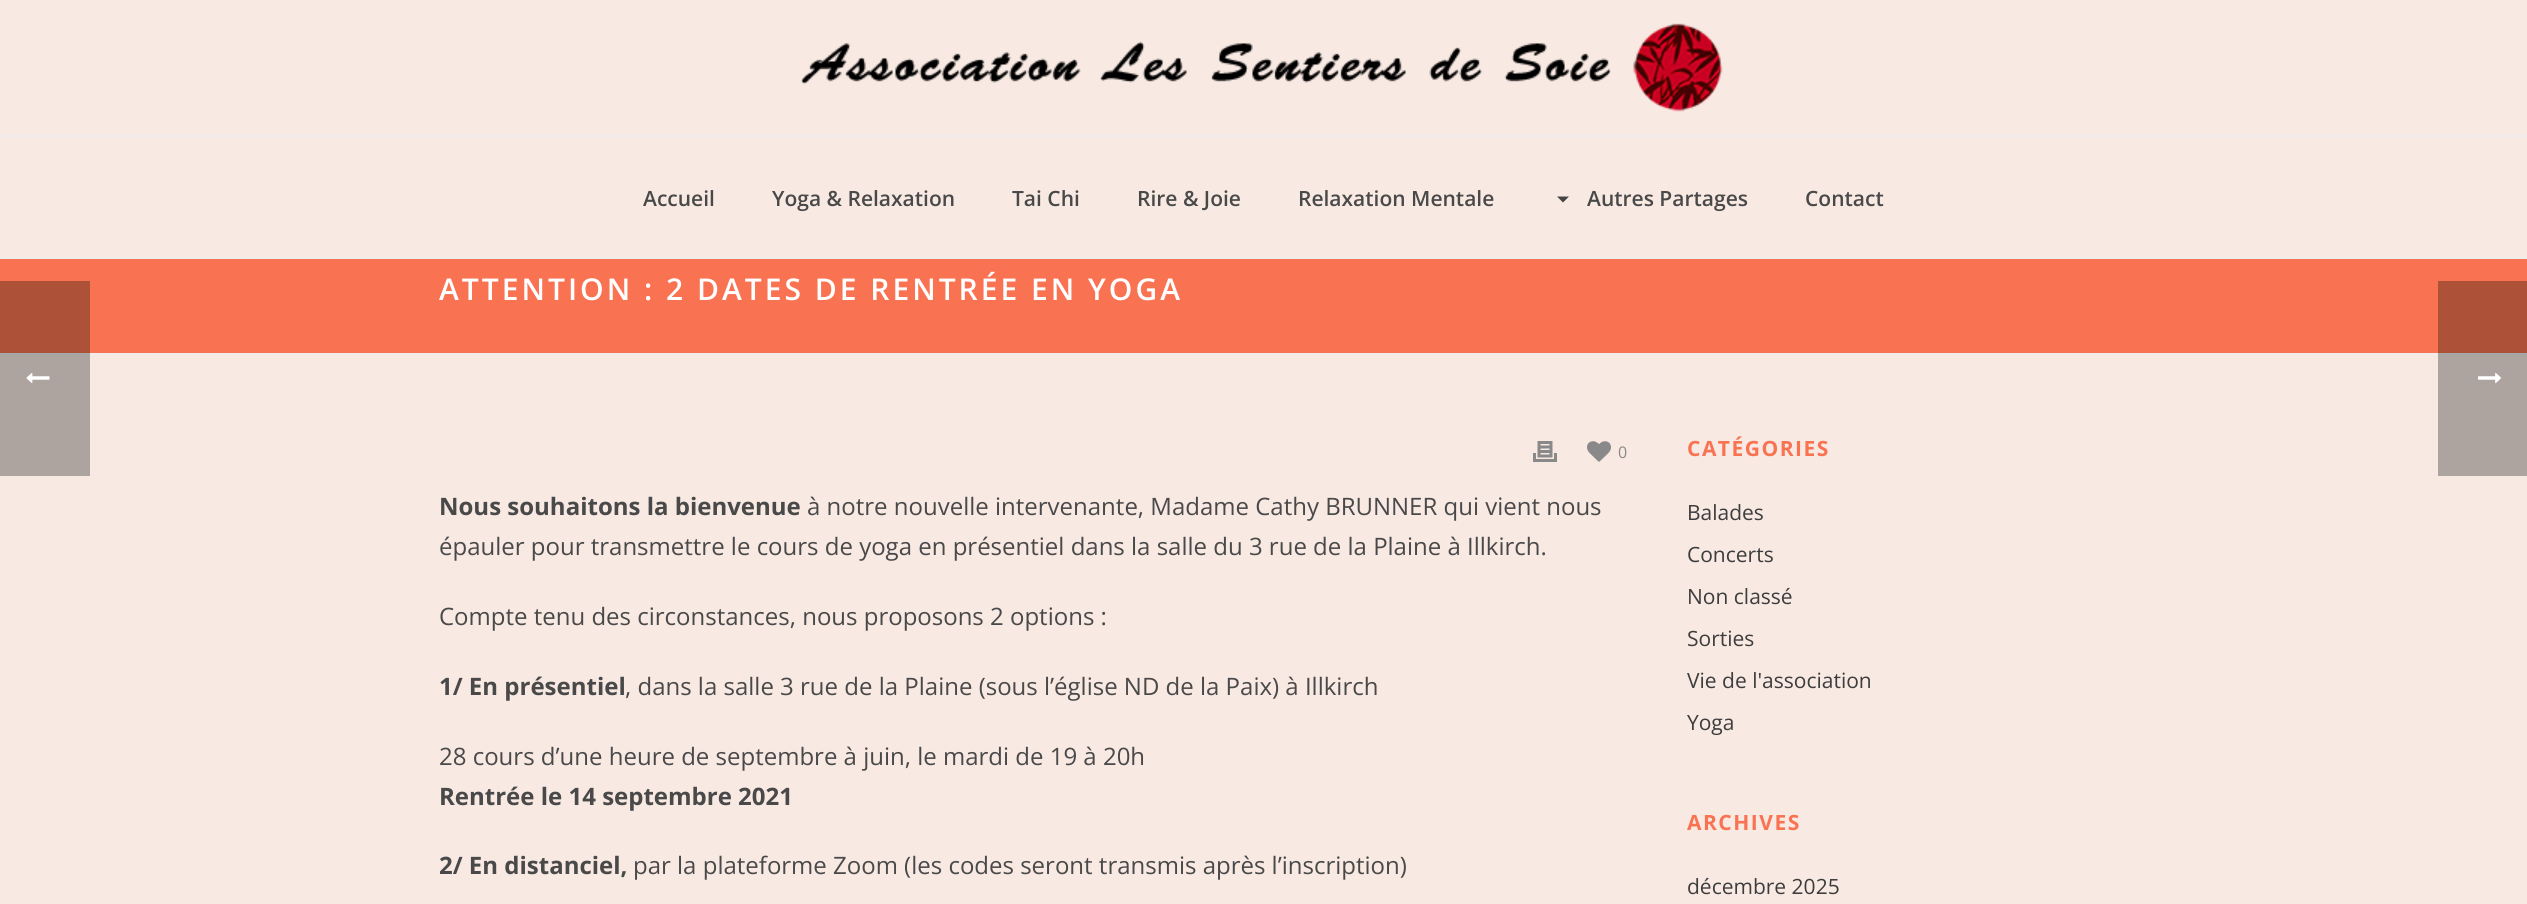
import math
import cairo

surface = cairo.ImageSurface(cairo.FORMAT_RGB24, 2527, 904)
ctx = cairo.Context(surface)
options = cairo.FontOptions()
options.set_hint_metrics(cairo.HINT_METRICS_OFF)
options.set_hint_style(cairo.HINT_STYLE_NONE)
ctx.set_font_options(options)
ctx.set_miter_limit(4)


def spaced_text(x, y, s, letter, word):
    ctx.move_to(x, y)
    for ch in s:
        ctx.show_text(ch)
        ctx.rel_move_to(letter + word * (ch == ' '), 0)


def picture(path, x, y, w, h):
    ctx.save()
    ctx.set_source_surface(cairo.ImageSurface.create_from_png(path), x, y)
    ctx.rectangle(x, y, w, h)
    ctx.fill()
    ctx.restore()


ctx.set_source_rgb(0.969, 0.914, 0.89)
ctx.paint()
ctx.set_source_rgb(0.976, 0.451, 0.322)
ctx.rectangle(0, 259, 2527, 94)
ctx.fill()
ctx.set_source_rgb(0.682, 0.318, 0.224)
ctx.rectangle(2438, 281, 89, 72)
ctx.fill()
ctx.rectangle(0, 281, 90, 72)
ctx.fill()
ctx.set_source_rgb(0.929, 0.929, 0.929)
ctx.rectangle(90, 353, 2348, 2)
ctx.fill()
ctx.set_source_rgb(0.651, 0.651, 0.651)
ctx.rectangle(2438, 353, 89, 2)
ctx.fill()
ctx.rectangle(0, 353, 90, 2)
ctx.fill()
ctx.set_source_rgb(0.929, 0.929, 0.929)
ctx.rectangle(0, 257, 2527, 2)
ctx.fill()
picture("img1.png", 801, 23, 922, 89)
ctx.rectangle(0, 135, 2527, 2)
ctx.fill()
ctx.select_font_face("Open Sans SemiBold")
ctx.set_font_size(21)
ctx.set_source_rgb(0.286, 0.286, 0.286)
ctx.move_to(643, 206)
ctx.show_text("Accueil")
ctx.move_to(772, 206)
ctx.show_text("Yoga & Relaxation")
ctx.move_to(1012, 206)
ctx.show_text("Tai Chi")
ctx.move_to(1137, 206)
ctx.show_text("Rire & Joie")
ctx.move_to(1298, 206)
ctx.show_text("Relaxation Mentale")
ctx.set_source_rgb(0.267, 0.267, 0.267)
ctx.new_path()
ctx.move_to(1557, 196.5)
ctx.line_to(1563, 202.5)
ctx.line_to(1569, 196.5)
ctx.close_path()
ctx.fill()
ctx.set_source_rgb(0.286, 0.286, 0.286)
ctx.move_to(1587, 206)
ctx.show_text("Autres Partages")
ctx.move_to(1805, 206)
ctx.show_text("Contact")
ctx.set_font_size(30)
ctx.set_source_rgb(1, 1, 1)
spaced_text(439, 300, "ATTENTION : 2 DATES DE RENTRÉE EN YOGA", 3, 0)
ctx.set_source_rgb(0.678, 0.639, 0.624)
ctx.rectangle(2438, 355, 89, 121)
ctx.fill()
ctx.rectangle(0, 355, 90, 121)
ctx.fill()
picture("img2.png", 1533, 441, 24, 21)
picture("img3.png", 1587, 441, 24, 21)
ctx.select_font_face("Open Sans")
ctx.set_font_size(16)
ctx.set_source_rgb(0.537, 0.537, 0.537)
ctx.move_to(1618, 458)
ctx.show_text("0")
ctx.select_font_face("Open Sans", cairo.FONT_SLANT_NORMAL, cairo.FONT_WEIGHT_BOLD)
ctx.set_font_size(24)
ctx.set_source_rgb(0.286, 0.286, 0.286)
ctx.move_to(439, 515)
ctx.show_text("Nous souhaitons la bienvenue")
ctx.select_font_face("Open Sans")
ctx.move_to(807, 515)
ctx.show_text("à notre nouvelle intervenante, Madame Cathy BRUNNER qui vient nous")
ctx.move_to(439, 555)
ctx.show_text("épauler pour transmettre le cours de yoga en présentiel dans la salle du 3 rue de la Plaine à Illkirch.")
ctx.move_to(439, 625)
ctx.show_text("Compte tenu des circonstances, nous proposons 2 options :")
ctx.select_font_face("Open Sans", cairo.FONT_SLANT_NORMAL, cairo.FONT_WEIGHT_BOLD)
ctx.move_to(439, 695)
ctx.show_text("1/ En présentiel")
ctx.select_font_face("Open Sans")
ctx.move_to(625, 695)
ctx.show_text(", dans la salle 3 rue de la Plaine (sous l’église ND de la Paix) à Illkirch")
ctx.move_to(439, 765)
ctx.show_text("28 cours d’une heure de septembre à juin, le mardi de 19 à 20h")
ctx.select_font_face("Open Sans", cairo.FONT_SLANT_NORMAL, cairo.FONT_WEIGHT_BOLD)
ctx.move_to(439, 805)
ctx.show_text("Rentrée le 14 septembre 2021")
ctx.move_to(439, 874)
ctx.show_text("2/ En distanciel,")
ctx.select_font_face("Open Sans")
ctx.move_to(633, 874)
ctx.show_text("par la plateforme Zoom (les codes seront transmis après l’inscription)")
ctx.select_font_face("Open Sans", cairo.FONT_SLANT_NORMAL, cairo.FONT_WEIGHT_BOLD)
ctx.set_font_size(21)
ctx.set_source_rgb(0.976, 0.451, 0.322)
spaced_text(1687, 456, "CATÉGORIES", 1.5, 0)
ctx.select_font_face("Open Sans")
ctx.set_source_rgb(0.239, 0.239, 0.239)
ctx.move_to(1687, 520)
ctx.show_text("Balades")
ctx.move_to(1687, 562)
ctx.show_text("Concerts")
ctx.move_to(1687, 604)
ctx.show_text("Non classé")
ctx.move_to(1687, 646)
ctx.show_text("Sorties")
ctx.move_to(1687, 688)
ctx.show_text("Vie de l'association")
ctx.move_to(1687, 730)
ctx.show_text("Yoga")
ctx.select_font_face("Open Sans", cairo.FONT_SLANT_NORMAL, cairo.FONT_WEIGHT_BOLD)
ctx.set_source_rgb(0.976, 0.451, 0.322)
spaced_text(1687, 830, "ARCHIVES", 1.5, 0)
ctx.select_font_face("Open Sans")
ctx.set_source_rgb(0.239, 0.239, 0.239)
ctx.move_to(1687, 894)
ctx.show_text("décembre 2025")
picture("img4.png", 26, 373, 24, 10)
picture("img5.png", 2478, 373, 23, 11)
surface.write_to_png("page.png")
